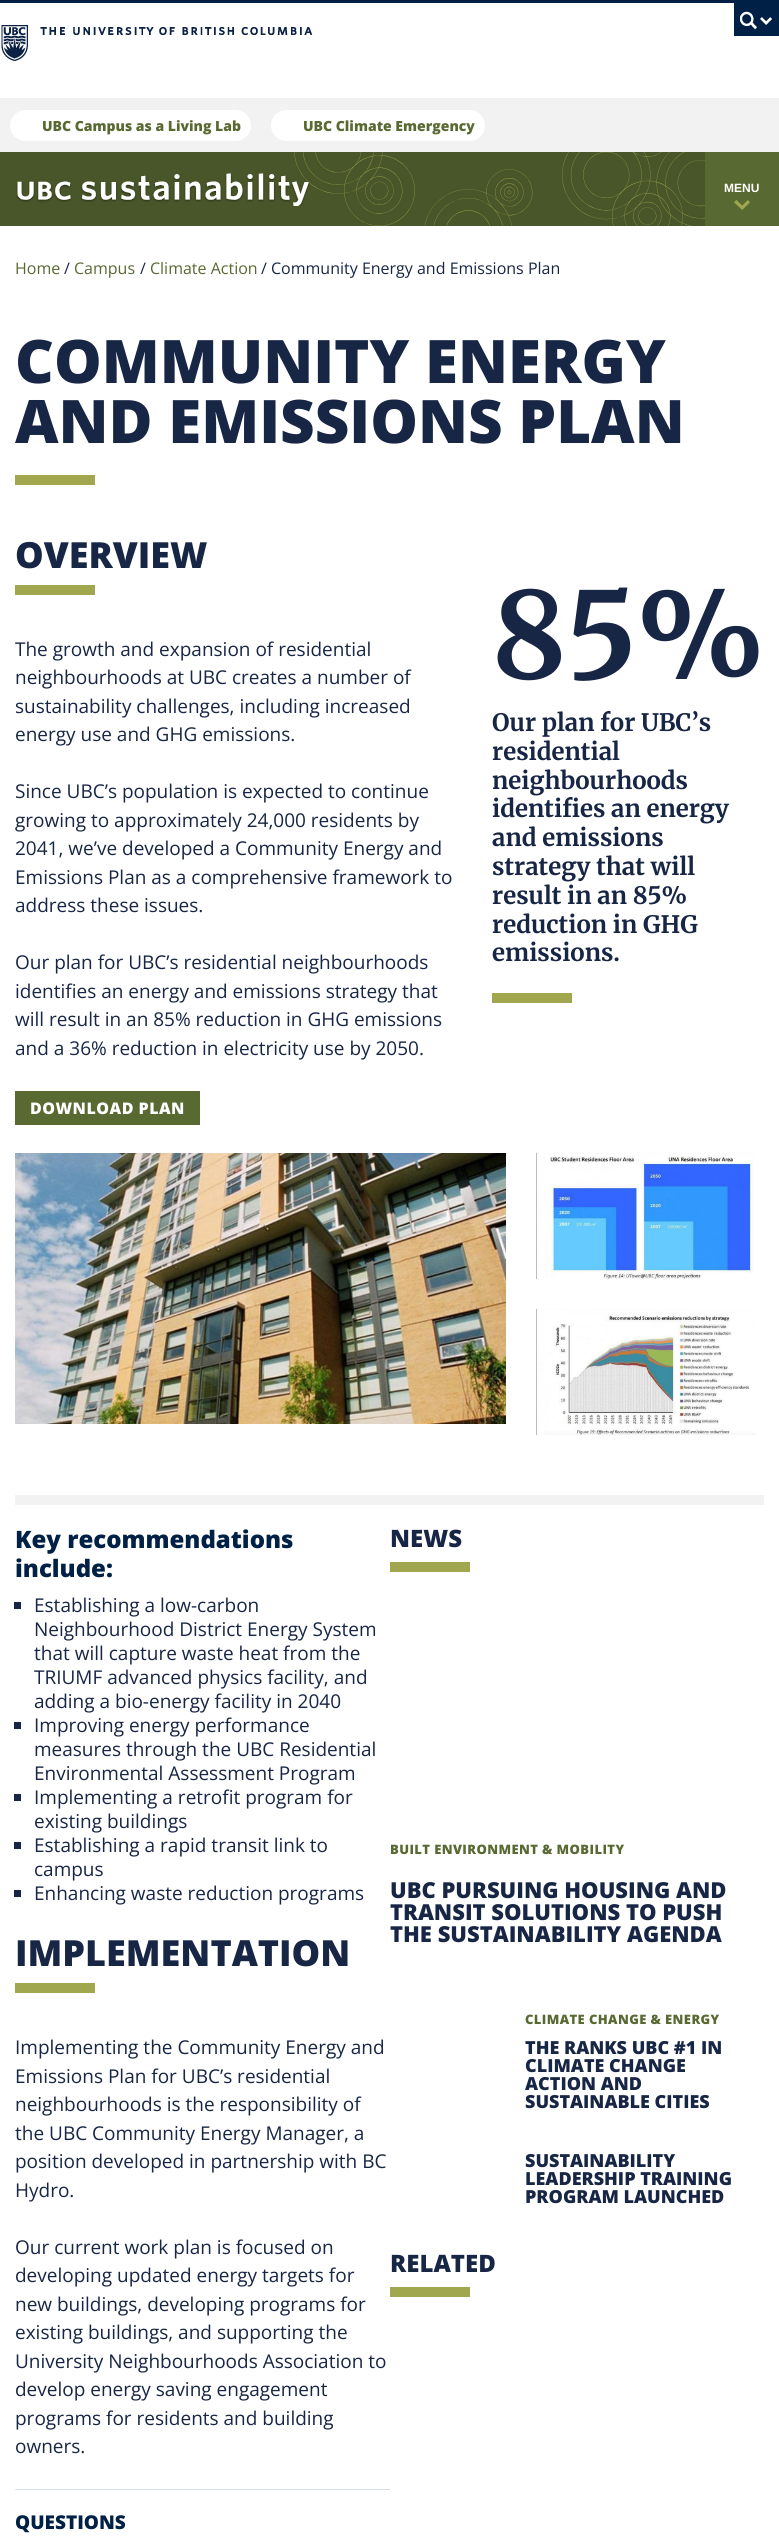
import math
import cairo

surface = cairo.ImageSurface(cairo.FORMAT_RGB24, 779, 2539)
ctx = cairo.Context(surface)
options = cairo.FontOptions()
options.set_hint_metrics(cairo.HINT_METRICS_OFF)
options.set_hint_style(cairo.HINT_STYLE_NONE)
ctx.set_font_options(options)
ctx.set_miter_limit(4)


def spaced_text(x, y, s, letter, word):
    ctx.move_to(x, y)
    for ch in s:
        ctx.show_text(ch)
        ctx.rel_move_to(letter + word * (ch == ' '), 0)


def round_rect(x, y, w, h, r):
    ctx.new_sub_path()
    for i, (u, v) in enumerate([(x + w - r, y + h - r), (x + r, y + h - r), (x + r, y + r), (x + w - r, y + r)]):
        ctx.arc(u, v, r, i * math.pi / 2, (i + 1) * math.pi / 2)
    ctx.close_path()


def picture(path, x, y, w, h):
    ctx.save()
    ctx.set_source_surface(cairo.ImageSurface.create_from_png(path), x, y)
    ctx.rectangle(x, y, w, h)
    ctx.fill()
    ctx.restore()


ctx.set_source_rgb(1, 1, 1)
ctx.paint()
ctx.set_source_rgb(0, 0.129, 0.271)
ctx.rectangle(0, 0, 779, 3)
ctx.fill()
picture("img1.png", 1, 25, 312, 36)
ctx.rectangle(734, 3, 45, 33)
ctx.fill()
picture("img2.png", 740, 11, 32, 19)
ctx.set_source_rgb(0.949, 0.949, 0.949)
ctx.rectangle(0, 98, 779, 54)
ctx.fill()
ctx.set_source_rgb(1, 1, 1)
round_rect(10, 110, 241, 31, 15.5)
ctx.fill()
ctx.select_font_face("Open Sans ExtraBold")
ctx.set_font_size(14)
ctx.set_source_rgb(0.349, 0.412, 0.196)
ctx.move_to(42, 131)
ctx.show_text("UBC Campus as a Living Lab")
ctx.set_source_rgb(1, 1, 1)
round_rect(271, 110, 214, 31, 15.5)
ctx.fill()
ctx.set_source_rgb(0.349, 0.412, 0.196)
ctx.move_to(303, 131)
ctx.show_text("UBC Climate Emergency")
ctx.set_source_rgb(0.286, 0.337, 0.161)
ctx.rectangle(0, 152, 705, 74)
ctx.fill()
picture("img3.png", 294, 152, 411, 74)
picture("img4.png", 16, 173, 294, 33)
ctx.set_source_rgb(0.349, 0.412, 0.196)
ctx.rectangle(705, 152, 74, 74)
ctx.fill()
ctx.select_font_face("Liberation Sans", cairo.FONT_SLANT_NORMAL, cairo.FONT_WEIGHT_BOLD)
ctx.set_font_size(12)
ctx.set_source_rgb(1, 1, 1)
ctx.move_to(724, 192)
ctx.show_text("MENU")
picture("img5.png", 734, 200, 16, 10)
ctx.select_font_face("Open Sans")
ctx.set_font_size(16)
ctx.set_source_rgb(0.349, 0.412, 0.196)
ctx.move_to(15, 274)
ctx.show_text("Home")
ctx.set_source_rgb(0.094, 0.149, 0.271)
ctx.move_to(64, 274)
ctx.show_text("/")
ctx.set_source_rgb(0.349, 0.412, 0.196)
ctx.move_to(74, 274)
ctx.show_text("Campus")
ctx.set_source_rgb(0.094, 0.149, 0.271)
ctx.move_to(140, 274)
ctx.show_text("/")
ctx.set_source_rgb(0.349, 0.412, 0.196)
ctx.move_to(150, 274)
ctx.show_text("Climate Action")
ctx.set_source_rgb(0.094, 0.149, 0.271)
ctx.move_to(261, 274)
ctx.show_text("/ Community Energy and Emissions Plan")
ctx.select_font_face("Open Sans ExtraBold")
ctx.set_font_size(60)
ctx.move_to(15, 383)
ctx.show_text("COMMUNITY ENERGY")
ctx.move_to(15, 443)
ctx.show_text("AND EMISSIONS PLAN")
ctx.set_source_rgb(0.627, 0.655, 0.31)
ctx.rectangle(15, 475, 80, 10)
ctx.fill()
ctx.set_font_size(36)
ctx.set_source_rgb(0.094, 0.149, 0.271)
ctx.move_to(15, 568)
ctx.show_text("OVERVIEW")
ctx.set_source_rgb(0.627, 0.655, 0.31)
ctx.rectangle(15, 585, 80, 10)
ctx.fill()
ctx.select_font_face("Open Sans")
ctx.set_font_size(19)
ctx.set_source_rgb(0.094, 0.149, 0.271)
ctx.move_to(15, 656)
ctx.show_text("The growth and expansion of residential")
ctx.move_to(15, 684)
ctx.show_text("neighbourhoods at UBC creates a number of")
ctx.move_to(15, 713)
ctx.show_text("sustainability challenges, including increased")
ctx.move_to(15, 741)
ctx.show_text("energy use and GHG emissions.")
ctx.move_to(15, 798)
ctx.show_text("Since UBC’s population is expected to continue")
ctx.move_to(15, 827)
ctx.show_text("growing to approximately 24,000 residents by")
ctx.move_to(15, 855)
ctx.show_text("2041, we’ve developed a Community Energy and")
ctx.move_to(15, 884)
ctx.show_text("Emissions Plan as a comprehensive framework to")
ctx.move_to(15, 912)
ctx.show_text("address these issues.")
ctx.move_to(15, 969)
ctx.show_text("Our plan for UBC’s residential neighbourhoods")
ctx.move_to(15, 998)
ctx.show_text("identifies an energy and emissions strategy that")
ctx.move_to(15, 1026)
ctx.show_text("will result in an 85% reduction in GHG emissions")
ctx.move_to(15, 1055)
ctx.show_text("and a 36% reduction in electricity use by 2050.")
ctx.set_source_rgb(0.349, 0.412, 0.196)
ctx.rectangle(15, 1091, 185, 34)
ctx.fill()
ctx.select_font_face("Open Sans ExtraBold")
ctx.set_font_size(16)
ctx.set_source_rgb(1, 1, 1)
spaced_text(30, 1114, "DOWNLOAD PLAN", 0.5, 0)
ctx.select_font_face("Merriweather", cairo.FONT_SLANT_NORMAL, cairo.FONT_WEIGHT_BOLD)
ctx.set_font_size(120)
ctx.set_source_rgb(0.094, 0.149, 0.271)
ctx.move_to(492, 679)
ctx.show_text("85%")
ctx.set_font_size(24)
ctx.move_to(492, 731)
ctx.show_text("Our plan for UBC’s")
ctx.move_to(492, 760)
ctx.show_text("residential")
ctx.move_to(492, 789)
ctx.show_text("neighbourhoods")
ctx.move_to(492, 817)
ctx.show_text("identifies an energy")
ctx.move_to(492, 846)
ctx.show_text("and emissions")
ctx.move_to(492, 875)
ctx.show_text("strategy that will")
ctx.move_to(492, 904)
ctx.show_text("result in an 85%")
ctx.move_to(492, 933)
ctx.show_text("reduction in GHG")
ctx.move_to(492, 961)
ctx.show_text("emissions.")
ctx.set_source_rgb(0.627, 0.655, 0.31)
ctx.rectangle(492, 993, 80, 10)
ctx.fill()
ctx.set_source_rgb(0.949, 0.949, 0.949)
ctx.rectangle(15, 1495, 749, 10)
ctx.fill()
picture("img6.png", 15, 1153, 491, 271)
picture("img7.png", 536, 1153, 219, 126)
picture("img8.png", 536, 1309, 220, 126)
ctx.select_font_face("Open Sans ExtraBold")
ctx.set_source_rgb(0, 0.129, 0.271)
ctx.move_to(15, 1548)
ctx.show_text("Key recommendations")
ctx.move_to(15, 1577)
ctx.show_text("include:")
ctx.set_source_rgb(0.094, 0.149, 0.271)
ctx.rectangle(14, 1602, 7, 7)
ctx.fill()
ctx.select_font_face("Open Sans")
ctx.set_font_size(19)
ctx.move_to(34, 1612)
ctx.show_text("Establishing a low-carbon")
ctx.move_to(34, 1636)
ctx.show_text("Neighbourhood District Energy System")
ctx.move_to(34, 1660)
ctx.show_text("that will capture waste heat from the")
ctx.move_to(34, 1684)
ctx.show_text("TRIUMF advanced physics facility, and")
ctx.move_to(34, 1708)
ctx.show_text("adding a bio-energy facility in 2040")
ctx.rectangle(14, 1722, 7, 7)
ctx.fill()
ctx.move_to(34, 1732)
ctx.show_text("Improving energy performance")
ctx.move_to(34, 1756)
ctx.show_text("measures through the UBC Residential")
ctx.move_to(34, 1780)
ctx.show_text("Environmental Assessment Program")
ctx.rectangle(14, 1794, 7, 7)
ctx.fill()
ctx.move_to(34, 1804)
ctx.show_text("Implementing a retrofit program for")
ctx.move_to(34, 1828)
ctx.show_text("existing buildings")
ctx.rectangle(14, 1842, 7, 7)
ctx.fill()
ctx.move_to(34, 1852)
ctx.show_text("Establishing a rapid transit link to")
ctx.move_to(34, 1876)
ctx.show_text("campus")
ctx.rectangle(14, 1890, 7, 7)
ctx.fill()
ctx.move_to(34, 1900)
ctx.show_text("Enhancing waste reduction programs")
ctx.select_font_face("Open Sans ExtraBold")
ctx.set_font_size(36)
ctx.move_to(15, 1966)
ctx.show_text("IMPLEMENTATION")
ctx.set_source_rgb(0.627, 0.655, 0.31)
ctx.rectangle(15, 1983, 80, 10)
ctx.fill()
ctx.select_font_face("Open Sans")
ctx.set_font_size(19)
ctx.set_source_rgb(0.094, 0.149, 0.271)
ctx.move_to(15, 2054)
ctx.show_text("Implementing the Community Energy and")
ctx.move_to(15, 2083)
ctx.show_text("Emissions Plan for UBC’s residential")
ctx.move_to(15, 2111)
ctx.show_text("neighbourhoods is the responsibility of")
ctx.move_to(15, 2140)
ctx.show_text("the UBC Community Energy Manager, a")
ctx.move_to(15, 2168)
ctx.show_text("position developed in partnership with BC")
ctx.move_to(15, 2197)
ctx.show_text("Hydro.")
ctx.move_to(15, 2254)
ctx.show_text("Our current work plan is focused on")
ctx.move_to(15, 2282)
ctx.show_text("developing updated energy targets for")
ctx.move_to(15, 2311)
ctx.show_text("new buildings, developing programs for")
ctx.move_to(15, 2339)
ctx.show_text("existing buildings, and supporting the")
ctx.move_to(15, 2368)
ctx.show_text("University Neighbourhoods Association to")
ctx.move_to(15, 2396)
ctx.show_text("develop energy saving engagement")
ctx.move_to(15, 2425)
ctx.show_text("programs for residents and building")
ctx.move_to(15, 2453)
ctx.show_text("owners.")
ctx.set_source_rgb(0.843, 0.878, 0.906)
ctx.rectangle(15, 2489, 375, 1)
ctx.fill()
ctx.select_font_face("Open Sans ExtraBold")
ctx.set_source_rgb(0, 0.129, 0.271)
ctx.move_to(15, 2529)
ctx.show_text("QUESTIONS")
ctx.set_font_size(24)
ctx.set_source_rgb(0.094, 0.149, 0.271)
ctx.move_to(390, 1547)
ctx.show_text("NEWS")
ctx.set_source_rgb(0.627, 0.655, 0.31)
ctx.rectangle(390, 1562, 80, 10)
ctx.fill()
ctx.set_font_size(13)
ctx.set_source_rgb(0.349, 0.412, 0.196)
spaced_text(390, 1854, "BUILT ENVIRONMENT & MOBILITY", 0.4, 0)
ctx.set_font_size(22)
ctx.set_source_rgb(0.094, 0.149, 0.271)
ctx.move_to(390, 1898)
ctx.show_text("UBC PURSUING HOUSING AND")
ctx.move_to(390, 1920)
ctx.show_text("TRANSIT SOLUTIONS TO PUSH")
ctx.move_to(390, 1942)
ctx.show_text("THE SUSTAINABILITY AGENDA")
ctx.set_font_size(13)
ctx.set_source_rgb(0.349, 0.412, 0.196)
spaced_text(525, 2024, "CLIMATE CHANGE & ENERGY", 0.4, 0)
ctx.set_font_size(18)
ctx.set_source_rgb(0.094, 0.149, 0.271)
ctx.move_to(525, 2054)
ctx.show_text("THE RANKS UBC #1 IN")
ctx.move_to(525, 2072)
ctx.show_text("CLIMATE CHANGE")
ctx.move_to(525, 2090)
ctx.show_text("ACTION AND")
ctx.move_to(525, 2108)
ctx.show_text("SUSTAINABLE CITIES")
ctx.move_to(525, 2167)
ctx.show_text("SUSTAINABILITY")
ctx.move_to(525, 2185)
ctx.show_text("LEADERSHIP TRAINING")
ctx.move_to(525, 2203)
ctx.show_text("PROGRAM LAUNCHED")
ctx.set_font_size(24)
ctx.move_to(390, 2272)
ctx.show_text("RELATED")
ctx.set_source_rgb(0.627, 0.655, 0.31)
ctx.rectangle(390, 2287, 80, 10)
ctx.fill()
surface.write_to_png("page.png")
